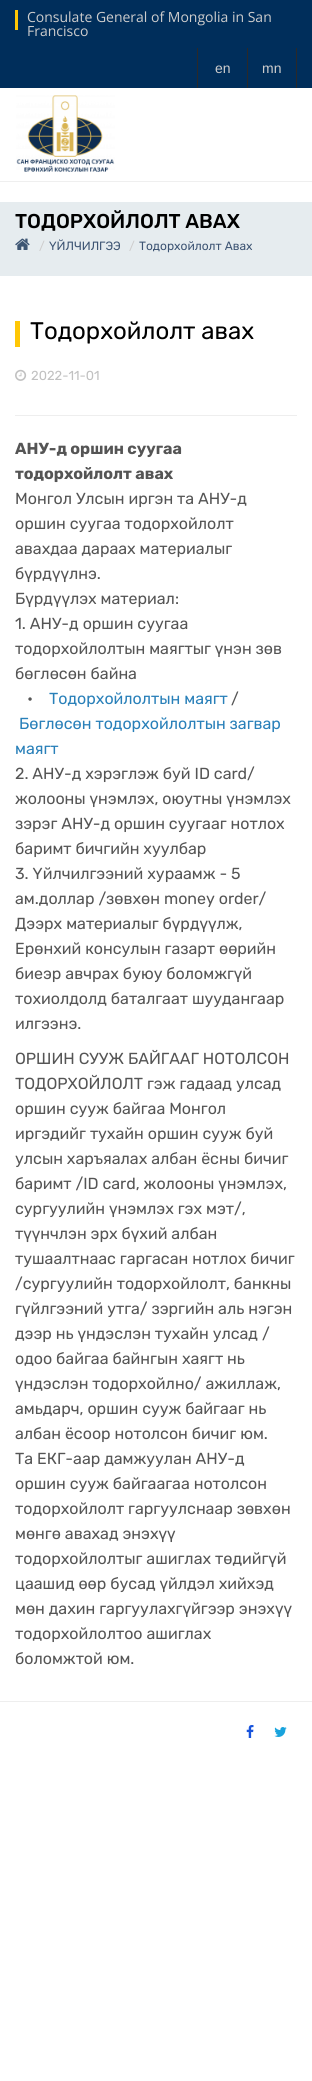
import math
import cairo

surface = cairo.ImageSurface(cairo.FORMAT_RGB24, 312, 2081)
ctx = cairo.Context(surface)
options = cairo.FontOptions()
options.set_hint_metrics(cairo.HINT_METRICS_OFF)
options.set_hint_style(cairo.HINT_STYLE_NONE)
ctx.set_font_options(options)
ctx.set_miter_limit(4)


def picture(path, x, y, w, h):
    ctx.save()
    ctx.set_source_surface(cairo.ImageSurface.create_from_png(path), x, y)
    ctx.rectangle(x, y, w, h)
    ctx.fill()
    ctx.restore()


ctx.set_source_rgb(1, 1, 1)
ctx.paint()
ctx.set_source_rgb(0, 0.18, 0.357)
ctx.rectangle(0, 0, 312, 88)
ctx.fill()
ctx.set_source_rgb(1, 0.78, 0.02)
ctx.rectangle(15, 10, 3, 20)
ctx.fill()
ctx.select_font_face("Open Sans")
ctx.set_font_size(14)
ctx.set_source_rgb(0.808, 0.804, 0.804)
ctx.move_to(27, 22)
ctx.show_text("Consulate General of Mongolia in San")
ctx.move_to(27, 36)
ctx.show_text("Francisco")
ctx.set_source_rgb(0.169, 0.161, 0.161)
ctx.rectangle(197, 48, 1, 40)
ctx.fill()
ctx.select_font_face("Liberation Sans")
ctx.set_source_rgb(0.808, 0.804, 0.804)
ctx.move_to(215, 73)
ctx.show_text("en")
ctx.set_source_rgb(0.169, 0.161, 0.161)
ctx.rectangle(296, 48, 1, 40)
ctx.fill()
ctx.rectangle(247, 48, 1, 40)
ctx.fill()
ctx.set_source_rgb(0.808, 0.804, 0.804)
ctx.move_to(262, 73)
ctx.show_text("mn")
picture("img1.png", 16, 95, 99, 77)
ctx.set_source_rgb(0.937, 0.937, 0.937)
ctx.rectangle(0, 181, 312, 1)
ctx.fill()
ctx.set_source_rgb(0.902, 0.922, 0.937)
ctx.rectangle(0, 202, 312, 74)
ctx.fill()
ctx.select_font_face("Rubik Medium")
ctx.set_font_size(20)
ctx.set_source_rgb(0, 0, 0)
ctx.move_to(15, 228)
ctx.show_text("ТОДОРХОЙЛОЛТ АВАХ")
picture("img2.png", 15, 238, 15, 12)
ctx.select_font_face("Rubik")
ctx.set_font_size(12)
ctx.set_source_rgb(0.808, 0.804, 0.804)
ctx.move_to(39, 250)
ctx.show_text("/")
ctx.set_source_rgb(0.239, 0.329, 0.451)
ctx.move_to(49, 250)
ctx.show_text("ҮЙЛЧИЛГЭЭ")
ctx.set_source_rgb(0.808, 0.804, 0.804)
ctx.move_to(129, 250)
ctx.show_text("/")
ctx.set_source_rgb(0.239, 0.329, 0.451)
ctx.move_to(139, 250)
ctx.show_text("Тодорхойлолт Авах")
ctx.set_source_rgb(1, 0.78, 0.02)
ctx.rectangle(15, 321, 5, 26)
ctx.fill()
ctx.set_font_size(24)
ctx.set_source_rgb(0, 0, 0)
ctx.move_to(30, 339)
ctx.show_text("Тодорхойлолт авах")
picture("img3.png", 15, 369, 12, 12)
ctx.set_font_size(13)
ctx.set_source_rgb(0.757, 0.757, 0.757)
ctx.move_to(31, 380)
ctx.show_text("2022-11-01")
ctx.set_source_rgb(0.933, 0.933, 0.933)
ctx.rectangle(15, 415, 282, 1)
ctx.fill()
ctx.select_font_face("Rubik", cairo.FONT_SLANT_NORMAL, cairo.FONT_WEIGHT_BOLD)
ctx.set_font_size(16)
ctx.set_source_rgb(0.333, 0.333, 0.333)
ctx.move_to(15, 454)
ctx.show_text("АНУ-д оршин суугаа")
ctx.move_to(15, 479)
ctx.show_text("тодорхойлолт авах")
ctx.select_font_face("Rubik")
ctx.move_to(15, 504)
ctx.show_text("Монгол Улсын иргэн та АНУ-д")
ctx.move_to(15, 529)
ctx.show_text("оршин суугаа тодорхойлолт")
ctx.move_to(15, 554)
ctx.show_text("авахдаа дараах материалыг")
ctx.move_to(15, 579)
ctx.show_text("бүрдүүлнэ.")
ctx.move_to(15, 604)
ctx.show_text("Бүрдүүлэх материал:")
ctx.move_to(15, 629)
ctx.show_text("1. АНУ-д оршин суугаа")
ctx.move_to(15, 654)
ctx.show_text("тодорхойлолтын маягтыг үнэн зөв")
ctx.move_to(15, 679)
ctx.show_text("бөглөсөн байна")
ctx.move_to(27, 704)
ctx.show_text("•")
ctx.set_source_rgb(0.161, 0.502, 0.725)
ctx.move_to(49, 704)
ctx.show_text("Тодорхойлолтын маягт")
ctx.set_source_rgb(0.333, 0.333, 0.333)
ctx.move_to(231, 704)
ctx.show_text("/")
ctx.set_source_rgb(0.161, 0.502, 0.725)
ctx.move_to(19, 729)
ctx.show_text("Бөглөсөн тодорхойлолтын загвар")
ctx.move_to(15, 754)
ctx.show_text("маягт")
ctx.set_source_rgb(0.333, 0.333, 0.333)
ctx.move_to(15, 779)
ctx.show_text("2. АНУ-д хэрэглэж буй ID card/")
ctx.move_to(15, 804)
ctx.show_text("жолооны үнэмлэх, оюутны үнэмлэх")
ctx.move_to(15, 829)
ctx.show_text("зэрэг АНУ-д оршин суугааг нотлох")
ctx.move_to(15, 854)
ctx.show_text("баримт бичгийн хуулбар")
ctx.move_to(15, 879)
ctx.show_text("3. Үйлчилгээний хураамж - 5")
ctx.move_to(15, 904)
ctx.show_text("ам.доллар /зөвхөн money order/")
ctx.move_to(15, 929)
ctx.show_text("Дээрх материалыг бүрдүүлж,")
ctx.move_to(15, 954)
ctx.show_text("Ерөнхий консулын газарт өөрийн")
ctx.move_to(15, 979)
ctx.show_text("биеэр авчрах буюу боломжгүй")
ctx.move_to(15, 1004)
ctx.show_text("тохиолдолд баталгаат шуудангаар")
ctx.move_to(15, 1029)
ctx.show_text("илгээнэ.")
ctx.move_to(15, 1064)
ctx.show_text("ОРШИН СУУЖ БАЙГААГ НОТОЛСОН")
ctx.move_to(15, 1089)
ctx.show_text("ТОДОРХОЙЛОЛТ гэж гадаад улсад")
ctx.move_to(15, 1114)
ctx.show_text("оршин сууж байгаа Монгол")
ctx.move_to(15, 1139)
ctx.show_text("иргэдийг тухайн оршин сууж буй")
ctx.move_to(15, 1164)
ctx.show_text("улсын харъяалах албан ёсны бичиг")
ctx.move_to(15, 1189)
ctx.show_text("баримт /ID card, жолооны үнэмлэх,")
ctx.move_to(15, 1214)
ctx.show_text("сургуулийн үнэмлэх гэх мэт/,")
ctx.move_to(15, 1239)
ctx.show_text("түүнчлэн эрх бүхий албан")
ctx.move_to(15, 1264)
ctx.show_text("тушаалтнаас гаргасан нотлох бичиг")
ctx.move_to(15, 1289)
ctx.show_text("/сургуулийн тодорхойлолт, банкны")
ctx.move_to(15, 1314)
ctx.show_text("гүйлгээний утга/ зэргийн аль нэгэн")
ctx.move_to(15, 1339)
ctx.show_text("дээр нь үндэслэн тухайн улсад /")
ctx.move_to(15, 1364)
ctx.show_text("одоо байгаа байнгын хаягт нь")
ctx.move_to(15, 1389)
ctx.show_text("үндэслэн тодорхойлно/ ажиллаж,")
ctx.move_to(15, 1414)
ctx.show_text("амьдарч, оршин сууж байгааг нь")
ctx.move_to(15, 1439)
ctx.show_text("албан ёсоор нотолсон бичиг юм.")
ctx.move_to(15, 1464)
ctx.show_text("Та ЕКГ-аар дамжуулан АНУ-д")
ctx.move_to(15, 1489)
ctx.show_text("оршин сууж байгаагаа нотолсон")
ctx.move_to(15, 1514)
ctx.show_text("тодорхойлолт гаргуулснаар зөвхөн")
ctx.move_to(15, 1539)
ctx.show_text("мөнгө авахад энэхүү")
ctx.move_to(15, 1564)
ctx.show_text("тодорхойлолтыг ашиглах төдийгүй")
ctx.move_to(15, 1589)
ctx.show_text("цаашид өөр бусад үйлдэл хийхэд")
ctx.move_to(15, 1614)
ctx.show_text("мөн дахин гаргуулахгүйгээр энэхүү")
ctx.move_to(15, 1639)
ctx.show_text("тодорхойлолтоо ашиглах")
ctx.move_to(15, 1664)
ctx.show_text("боломжтой юм.")
ctx.set_source_rgb(0.933, 0.933, 0.933)
ctx.rectangle(0, 1701, 312, 1)
ctx.fill()
picture("img4.png", 246, 1725, 8, 13)
picture("img5.png", 274, 1727, 13, 10)
surface.write_to_png("page.png")
